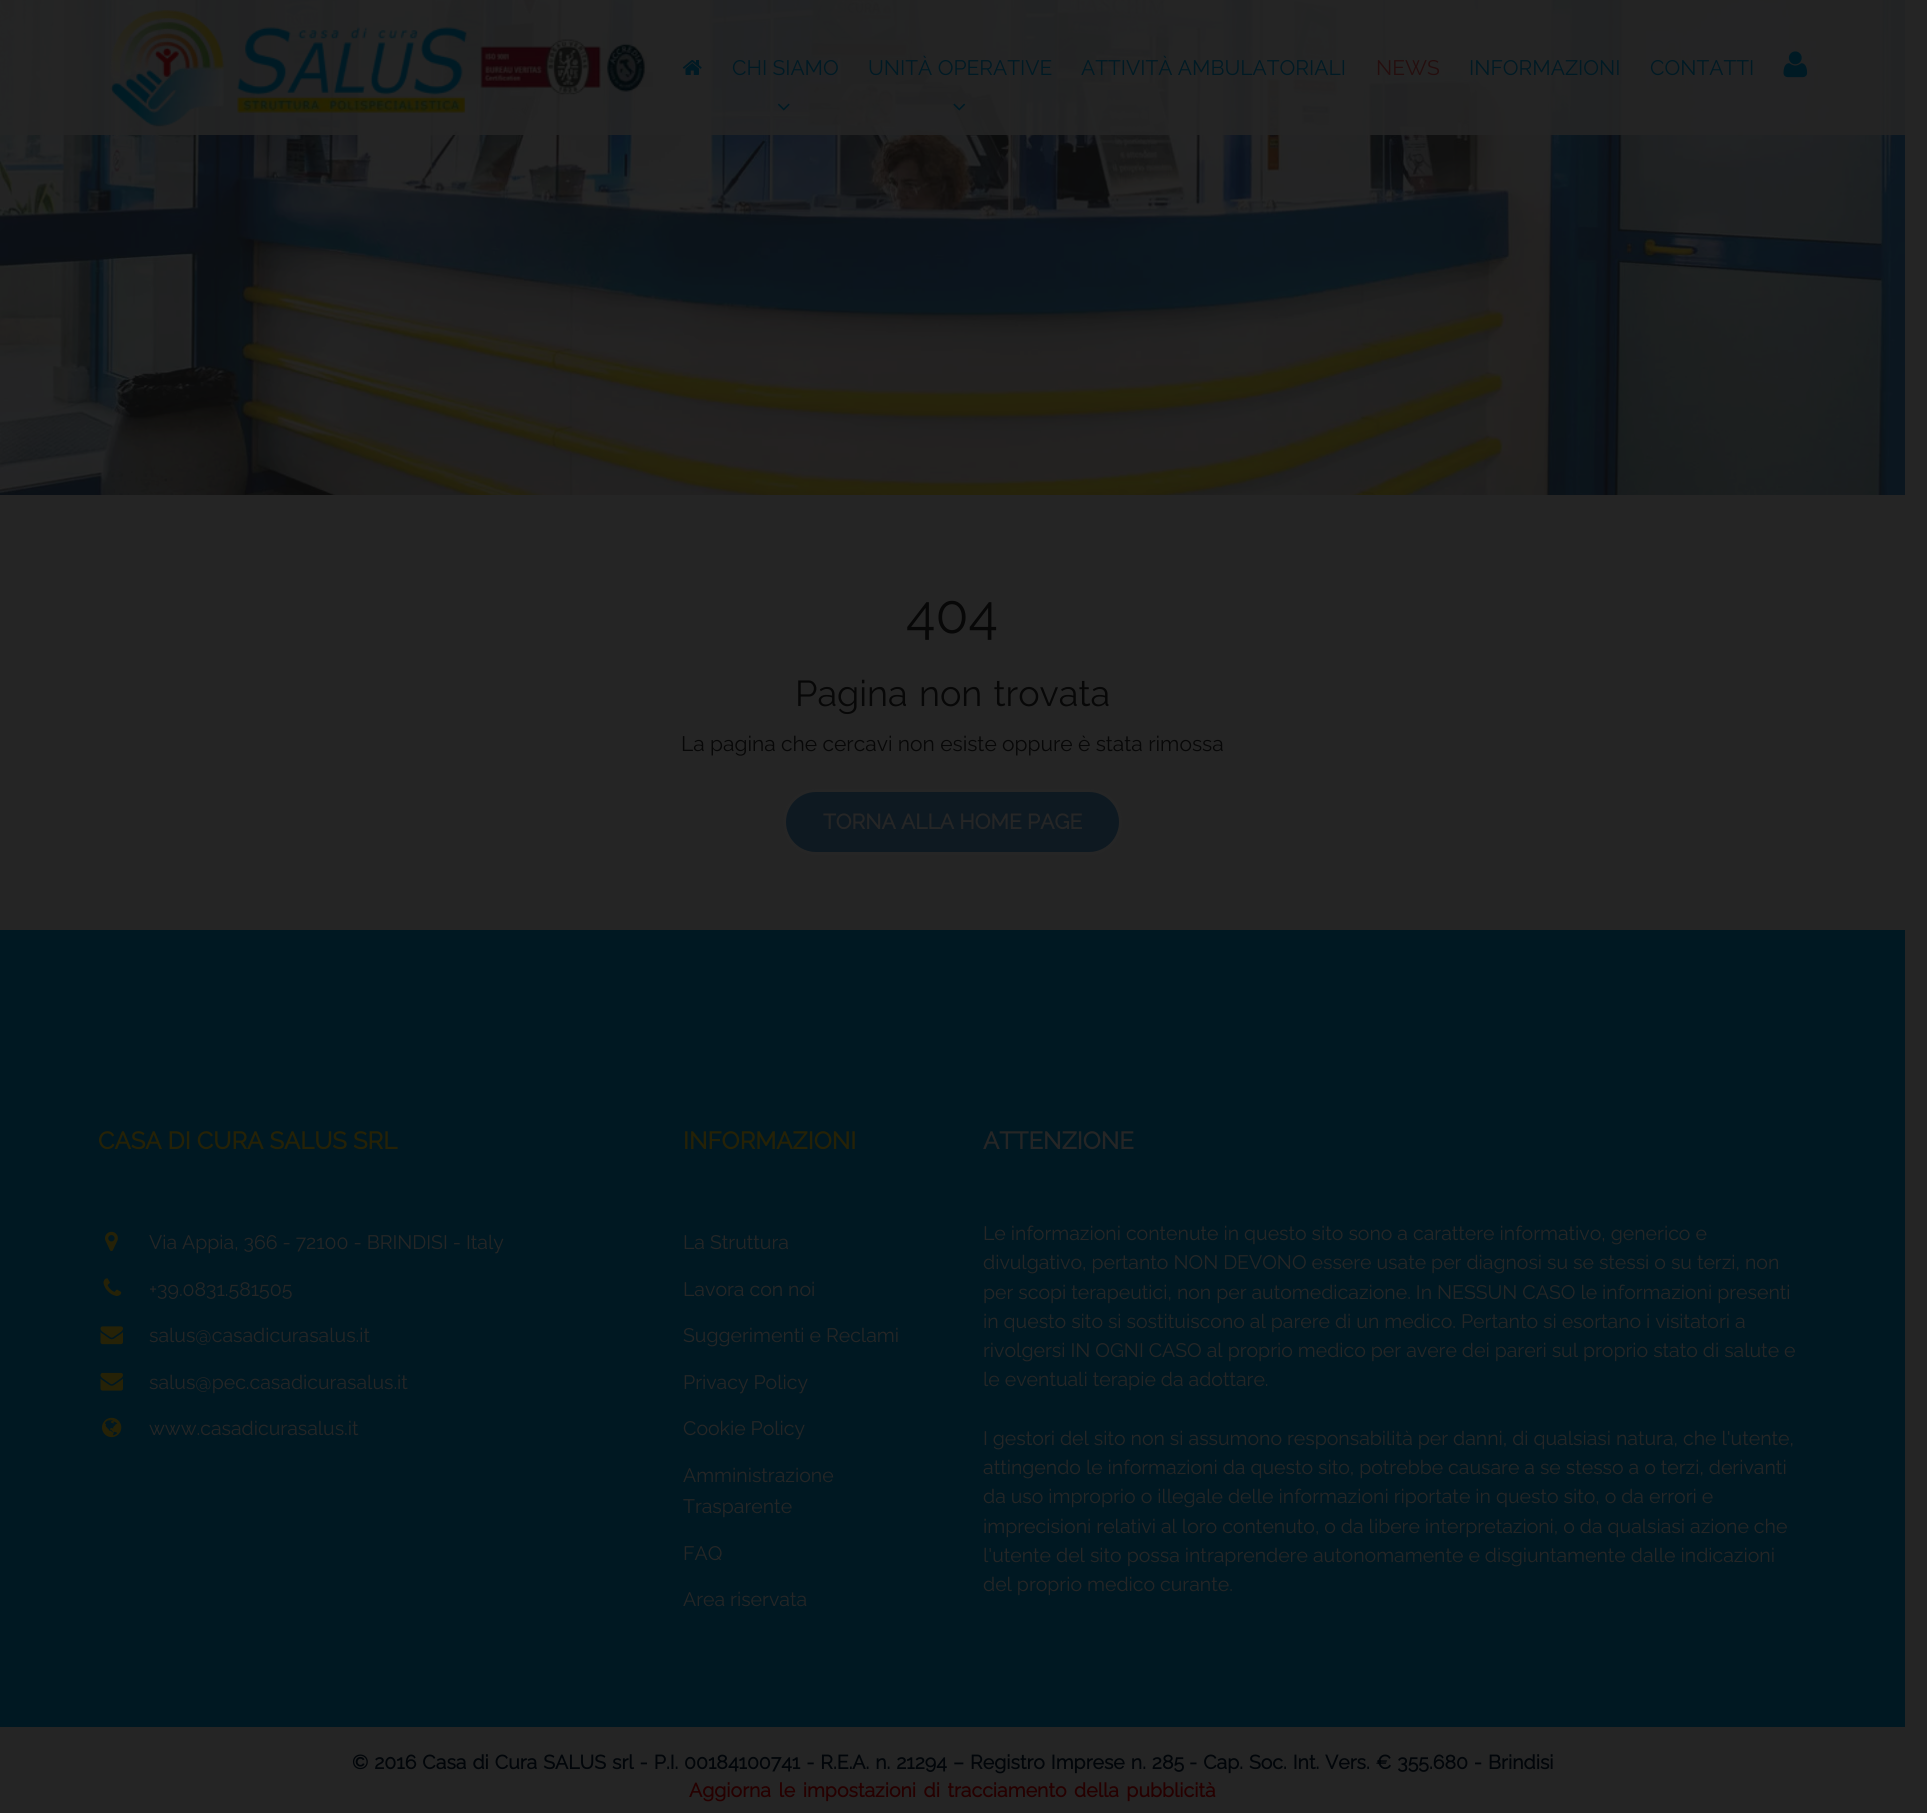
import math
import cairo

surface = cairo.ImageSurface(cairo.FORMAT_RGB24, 1927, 1813)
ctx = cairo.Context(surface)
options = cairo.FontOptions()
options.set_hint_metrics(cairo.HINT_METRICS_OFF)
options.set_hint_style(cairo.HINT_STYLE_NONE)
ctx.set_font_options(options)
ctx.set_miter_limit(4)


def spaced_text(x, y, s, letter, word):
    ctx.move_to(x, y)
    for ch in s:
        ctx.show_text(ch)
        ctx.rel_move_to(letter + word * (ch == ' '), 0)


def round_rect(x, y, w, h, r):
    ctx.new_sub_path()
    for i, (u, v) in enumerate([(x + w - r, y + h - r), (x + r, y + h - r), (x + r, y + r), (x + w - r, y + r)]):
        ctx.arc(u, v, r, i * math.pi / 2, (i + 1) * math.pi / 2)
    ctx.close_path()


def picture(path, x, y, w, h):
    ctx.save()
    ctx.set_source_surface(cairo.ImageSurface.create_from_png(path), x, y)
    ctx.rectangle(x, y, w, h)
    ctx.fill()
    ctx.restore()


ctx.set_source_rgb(0.145, 0.145, 0.145)
ctx.paint()
picture("img1.png", 0, 0, 1905, 495)
ctx.set_source_rgba(0.145, 0.145, 0.145, 0.9)
ctx.rectangle(0, 0, 1905, 135)
ctx.fill()
picture("img2.png", 110, 10, 535, 117)
picture("img3.png", 682, 60, 20, 15)
ctx.select_font_face("Raleway")
ctx.set_font_size(21)
ctx.set_source_rgb(0, 0.102, 0.141)
ctx.move_to(732, 75)
ctx.show_text("CHI SIAMO")
picture("img4.png", 777, 103, 13, 8)
ctx.move_to(868, 75)
ctx.show_text("UNITÀ OPERATIVE")
picture("img5.png", 953, 103, 13, 8)
ctx.move_to(1081, 75)
ctx.show_text("ATTIVITÀ AMBULATORIALI")
ctx.set_source_rgb(0.145, 0.055, 0.055)
ctx.move_to(1376, 75)
ctx.show_text("NEWS")
ctx.set_source_rgb(0, 0.102, 0.141)
ctx.move_to(1469, 75)
ctx.show_text("INFORMAZIONI")
ctx.move_to(1650, 75)
ctx.show_text("CONTATTI")
picture("img6.png", 1783, 51, 25, 27)
ctx.set_font_size(54)
ctx.set_source_rgb(0.031, 0.031, 0.031)
ctx.move_to(906, 633)
ctx.show_text("404")
ctx.set_font_size(36)
spaced_text(795, 706, "Pagina non trovata", 0, 2)
ctx.set_font_size(21)
ctx.move_to(681, 751)
ctx.show_text("La pagina che cercavi non esiste oppure è stata rimossa")
ctx.set_source_rgb(0.055, 0.098, 0.129)
round_rect(784.5, 790.5, 336, 63, 31.5)
ctx.fill_preserve()
ctx.set_source_rgb(0.149, 0.149, 0.149)
ctx.set_line_width(3)
ctx.stroke()
ctx.select_font_face("Raleway", cairo.FONT_SLANT_NORMAL, cairo.FONT_WEIGHT_BOLD)
ctx.move_to(823, 829)
ctx.show_text("TORNA ALLA HOME PAGE")
ctx.set_source_rgb(0, 0.094, 0.133)
ctx.rectangle(0, 930, 1905, 797)
ctx.fill()
ctx.set_font_size(24)
ctx.set_source_rgb(0.149, 0.133, 0.027)
ctx.move_to(98, 1149)
ctx.show_text("CASA DI CURA SALUS SRL")
picture("img7.png", 105, 1231, 13, 21)
ctx.select_font_face("Raleway")
ctx.set_font_size(19.5)
ctx.set_source_rgb(0.149, 0.149, 0.149)
ctx.move_to(149, 1249)
ctx.show_text("Via Appia, 366 - 72100 - BRINDISI - Italy")
picture("img8.png", 103, 1278, 19, 18)
ctx.move_to(149, 1296)
ctx.show_text("+39.0831.581505")
picture("img9.png", 100, 1326, 23, 19)
ctx.move_to(149, 1342)
ctx.show_text("salus@casadicurasalus.it")
picture("img10.png", 100, 1372, 23, 19)
ctx.move_to(149, 1389)
ctx.show_text("salus@pec.casadicurasalus.it")
picture("img11.png", 102, 1417, 20, 21)
ctx.move_to(149, 1435)
ctx.show_text("www.casadicurasalus.it")
ctx.select_font_face("Raleway", cairo.FONT_SLANT_NORMAL, cairo.FONT_WEIGHT_BOLD)
ctx.set_font_size(24)
ctx.set_source_rgb(0.149, 0.133, 0.027)
ctx.move_to(683, 1149)
ctx.show_text("INFORMAZIONI")
ctx.select_font_face("Raleway")
ctx.set_font_size(19.5)
ctx.set_source_rgb(0.149, 0.149, 0.149)
ctx.move_to(683, 1249)
ctx.show_text("La Struttura")
ctx.move_to(683, 1296)
ctx.show_text("Lavora con noi")
ctx.move_to(683, 1342)
ctx.show_text("Suggerimenti e Reclami")
ctx.move_to(683, 1389)
ctx.show_text("Privacy Policy")
ctx.move_to(683, 1435)
ctx.show_text("Cookie Policy")
ctx.move_to(683, 1482)
ctx.show_text("Amministrazione")
ctx.move_to(683, 1513)
ctx.show_text("Trasparente")
ctx.move_to(683, 1560)
ctx.show_text("FAQ")
ctx.move_to(683, 1606)
ctx.show_text("Area riservata")
ctx.select_font_face("Raleway", cairo.FONT_SLANT_NORMAL, cairo.FONT_WEIGHT_BOLD)
ctx.set_font_size(24)
ctx.move_to(983, 1149)
ctx.show_text("ATTENZIONE")
ctx.select_font_face("Raleway")
ctx.set_font_size(19.5)
ctx.move_to(983, 1240)
ctx.show_text("Le informazioni contenute in questo sito sono a carattere informativo, generico e")
ctx.move_to(983, 1269)
ctx.show_text("divulgativo, pertanto NON DEVONO essere usate per diagnosi su se stessi o su terzi, non")
ctx.move_to(983, 1299)
ctx.show_text("per scopi terapeutici, non per automedicazione. In NESSUN CASO le informazioni presenti")
ctx.move_to(983, 1328)
ctx.show_text("in questo sito si sostituiscono al parere di un medico. Pertanto si esortano i visitatori a")
ctx.move_to(983, 1357)
ctx.show_text("rivolgersi IN OGNI CASO al proprio medico per avere dei pareri sul proprio stato di salute e")
ctx.move_to(983, 1386)
ctx.show_text("le eventuali terapie da adottare.")
ctx.move_to(983, 1445)
ctx.show_text("I gestori del sito non si assumono responsabilità per danni, di qualsiasi natura, che l'utente,")
ctx.move_to(983, 1474)
ctx.show_text("attingendo le informazioni da questo sito, potrebbe causare a se stesso a o terzi, derivanti")
ctx.move_to(983, 1503)
ctx.show_text("da uso improprio o illegale delle informazioni riportate in questo sito, o da errori e")
ctx.move_to(983, 1533)
ctx.show_text("imprecisioni relativi al loro contenuto, o da libere interpretazioni, o da qualsiasi azione che")
ctx.move_to(983, 1562)
ctx.show_text("l'utente del sito possa intraprendere autonomamente e disgiuntamente dalle indicazioni")
ctx.move_to(983, 1591)
ctx.show_text("del proprio medico curante.")
ctx.select_font_face("Raleway", cairo.FONT_SLANT_NORMAL, cairo.FONT_WEIGHT_BOLD)
ctx.set_source_rgb(0.004, 0.02, 0.039)
spaced_text(352, 1769, "© 2016 Casa di Cura SALUS srl - P.I. 00184100741 - R.E.A. n. 21294 – Registro Imprese n. 285", 0, 1)
spaced_text(1189, 1769, "- Cap. Soc. Int. Vers. € 355.680 - Brindisi", 0, 1)
ctx.set_source_rgb(0.149, 0, 0)
spaced_text(689, 1797, "Aggiorna le impostazioni di tracciamento della pubblicità", 0, 2.5)
surface.write_to_png("page.png")
